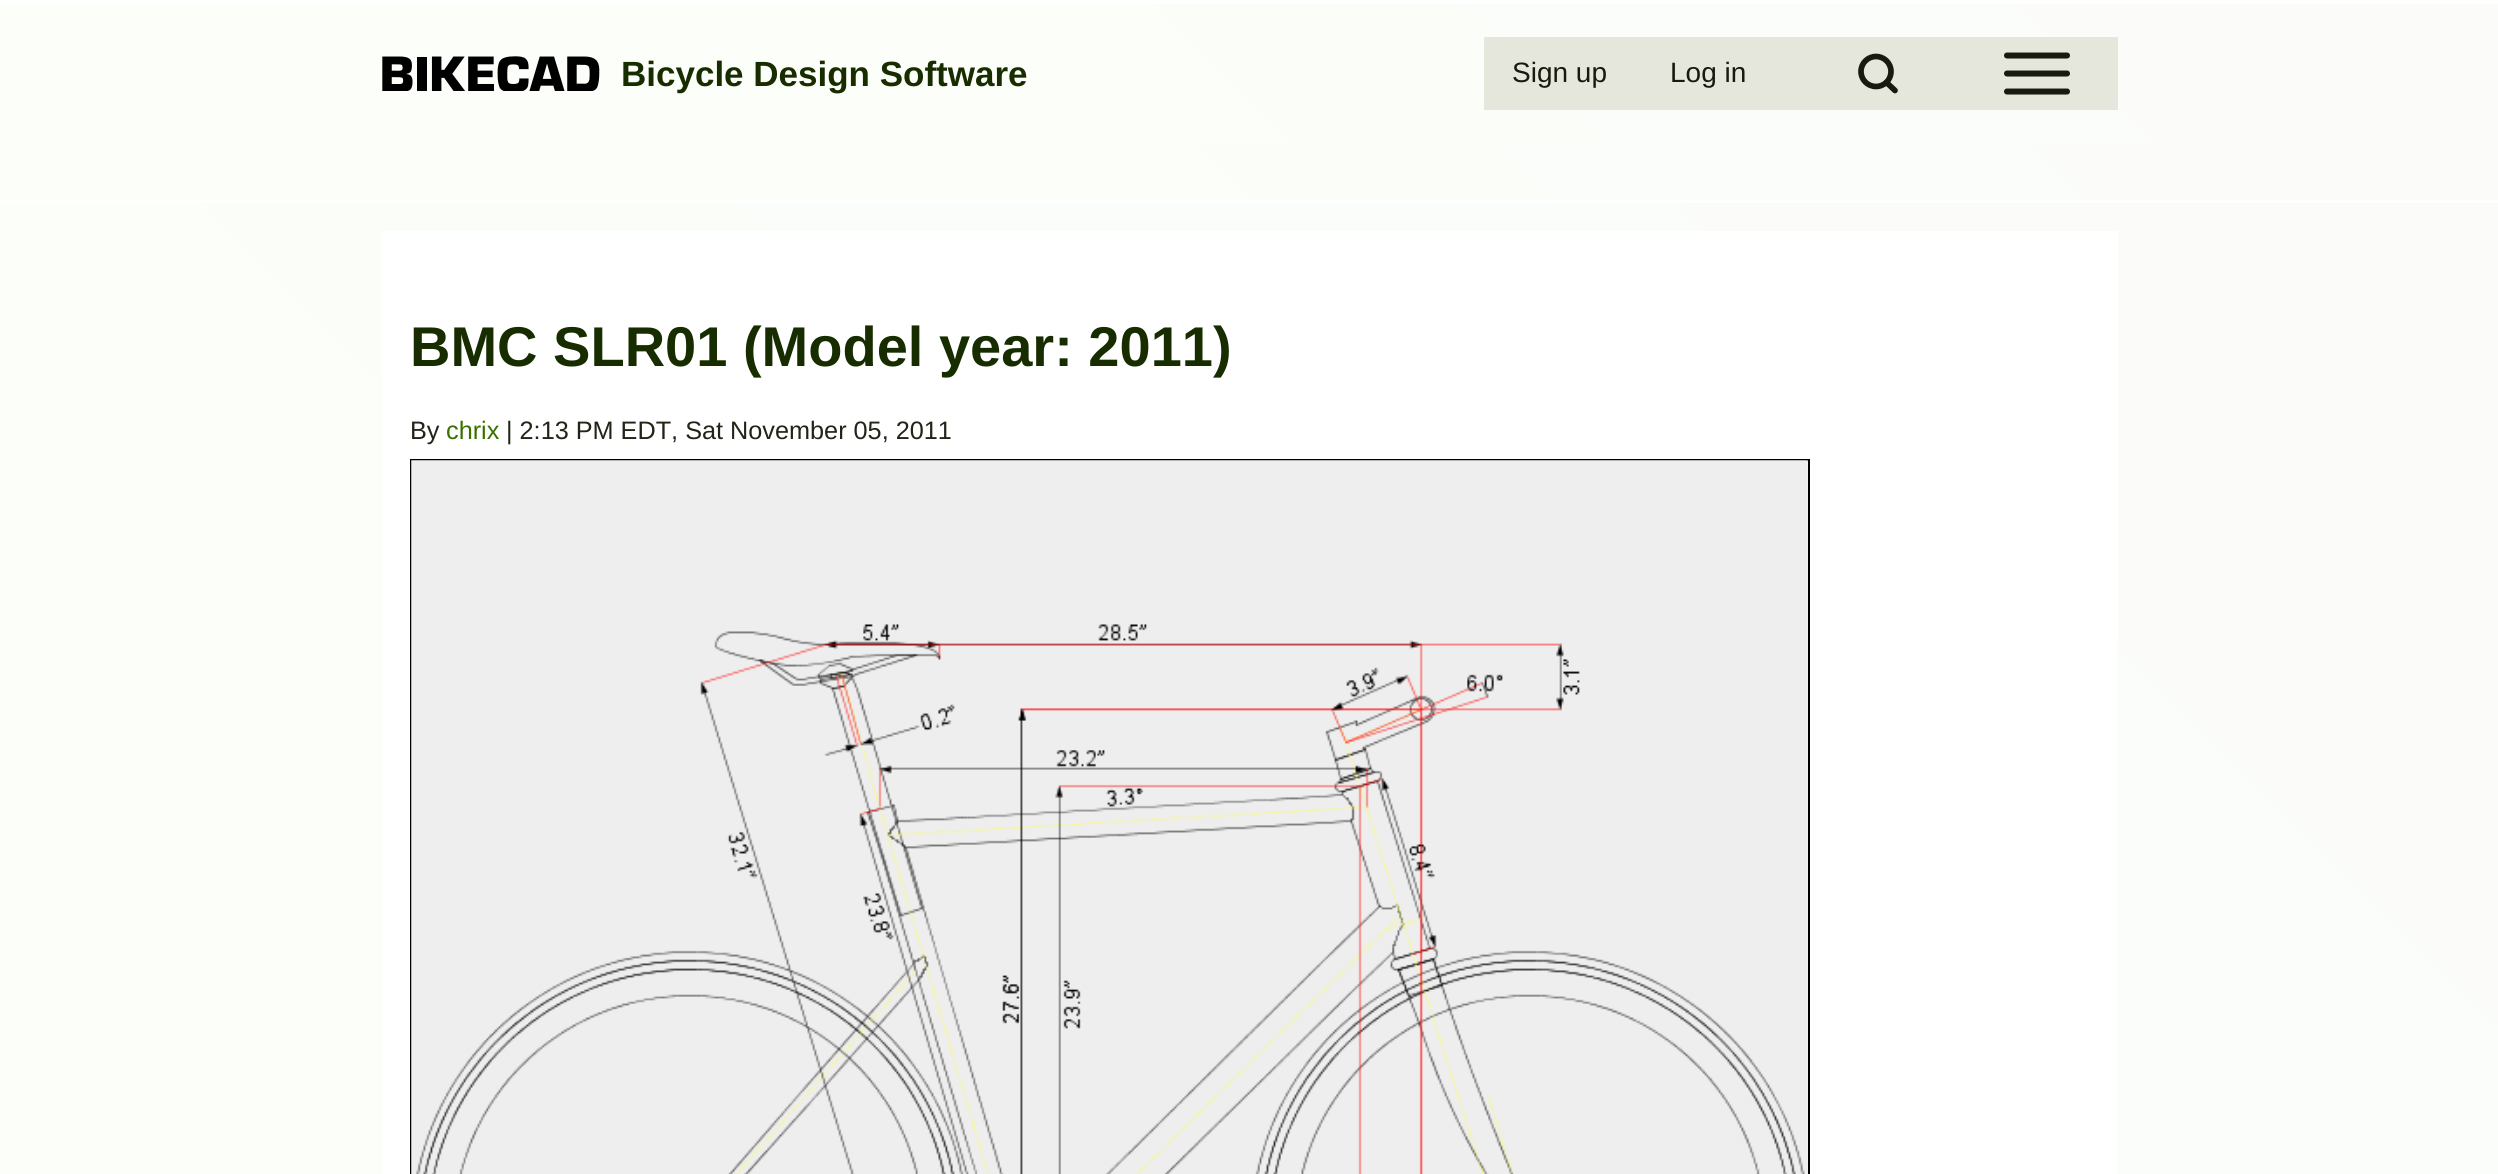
import math
import cairo

surface = cairo.ImageSurface(cairo.FORMAT_RGB24, 2498, 1174)
ctx = cairo.Context(surface)
options = cairo.FontOptions()
options.set_hint_metrics(cairo.HINT_METRICS_OFF)
options.set_hint_style(cairo.HINT_STYLE_NONE)
ctx.set_font_options(options)
ctx.set_miter_limit(4)


def picture(path, x, y, w, h):
    ctx.save()
    ctx.set_source_surface(cairo.ImageSurface.create_from_png(path), x, y)
    ctx.rectangle(x, y, w, h)
    ctx.fill()
    ctx.restore()


ctx.set_source_rgb(1, 1, 1)
ctx.paint()
gradient = cairo.LinearGradient(590, 733, 1909, -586)
gradient.add_color_stop_rgba(0, 0.988, 1, 0.976, 1)
gradient.add_color_stop_rgba(1, 0.984, 0.988, 0.98, 1)
ctx.set_source(gradient)
ctx.rectangle(0, 4, 2498, 140)
ctx.fill()
ctx.set_source_rgb(0.898, 0.906, 0.863)
ctx.rectangle(1799, 37, 319, 73)
ctx.fill()
ctx.arc(1876, 71.5, 15, 0, 2 * math.pi)
ctx.set_source_rgb(0.094, 0.102, 0.067)
ctx.set_line_width(5.7)
ctx.stroke()
ctx.new_path()
ctx.move_to(1895, 90.5)
ctx.line_to(1886.5, 82.5)
ctx.set_line_cap(cairo.LINE_CAP_ROUND)
ctx.set_line_join(cairo.LINE_JOIN_ROUND)
ctx.stroke()
picture("img1.png", 382, 56, 218, 35)
ctx.select_font_face("Liberation Sans", cairo.FONT_SLANT_NORMAL, cairo.FONT_WEIGHT_BOLD)
ctx.set_font_size(35)
ctx.set_source_rgb(0.09, 0.176, 0)
ctx.move_to(621, 86)
ctx.show_text("Bicycle Design Software")
ctx.set_source_rgb(0.898, 0.906, 0.863)
ctx.rectangle(1484, 37, 315, 73)
ctx.fill()
ctx.select_font_face("Liberation Sans")
ctx.set_font_size(28)
ctx.set_source_rgb(0.094, 0.102, 0.067)
ctx.move_to(1512, 82)
ctx.show_text("Sign up")
ctx.move_to(1670, 82)
ctx.show_text("Log in")
ctx.new_path()
ctx.move_to(2007, 91.5)
ctx.line_to(2067, 91.5)
ctx.close_path()
ctx.set_line_width(6)
ctx.stroke()
ctx.new_path()
ctx.move_to(2007, 73.5)
ctx.line_to(2067, 73.5)
ctx.close_path()
ctx.stroke()
ctx.new_path()
ctx.move_to(2007, 55.5)
ctx.line_to(2067, 55.5)
ctx.close_path()
ctx.stroke()
gradient = cairo.LinearGradient(611, 810, 1888, -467)
gradient.add_color_stop_rgba(0, 0.988, 1, 0.976, 1)
gradient.add_color_stop_rgba(1, 0.984, 0.988, 0.98, 1)
ctx.set_source(gradient)
ctx.rectangle(0, 144, 2498, 56)
ctx.fill()
gradient = cairo.LinearGradient(123, 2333, 2376, 80)
gradient.add_color_stop_rgba(0, 0.988, 1, 0.976, 1)
gradient.add_color_stop_rgba(1, 0.984, 0.988, 0.98, 1)
ctx.set_source(gradient)
ctx.rectangle(0, 203, 2498, 971)
ctx.fill()
ctx.set_source_rgb(1, 1, 1)
ctx.rectangle(382, 231, 1736, 943)
ctx.fill()
ctx.select_font_face("Liberation Sans", cairo.FONT_SLANT_NORMAL, cairo.FONT_WEIGHT_BOLD)
ctx.set_font_size(56)
ctx.set_source_rgb(0.09, 0.176, 0)
ctx.move_to(410, 366)
ctx.show_text("BMC SLR01 (Model year: 2011)")
ctx.select_font_face("Liberation Sans")
ctx.set_font_size(25.25)
ctx.set_source_rgb(0.133, 0.141, 0.094)
ctx.move_to(410, 439)
ctx.show_text("By")
ctx.set_source_rgb(0.224, 0.443, 0)
ctx.move_to(446, 439)
ctx.show_text("chrix")
ctx.set_source_rgb(0.133, 0.141, 0.094)
ctx.move_to(506, 439)
ctx.show_text("| 2:13 PM EDT, Sat November 05, 2011")
ctx.rectangle(411, 460, 1398, 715)
ctx.set_source_rgb(0, 0, 0)
ctx.set_line_width(2)
ctx.set_line_cap(cairo.LINE_CAP_BUTT)
ctx.set_line_join(cairo.LINE_JOIN_MITER)
ctx.stroke()
picture("img2.png", 411, 460, 1397, 714)
surface.write_to_png("page.png")
